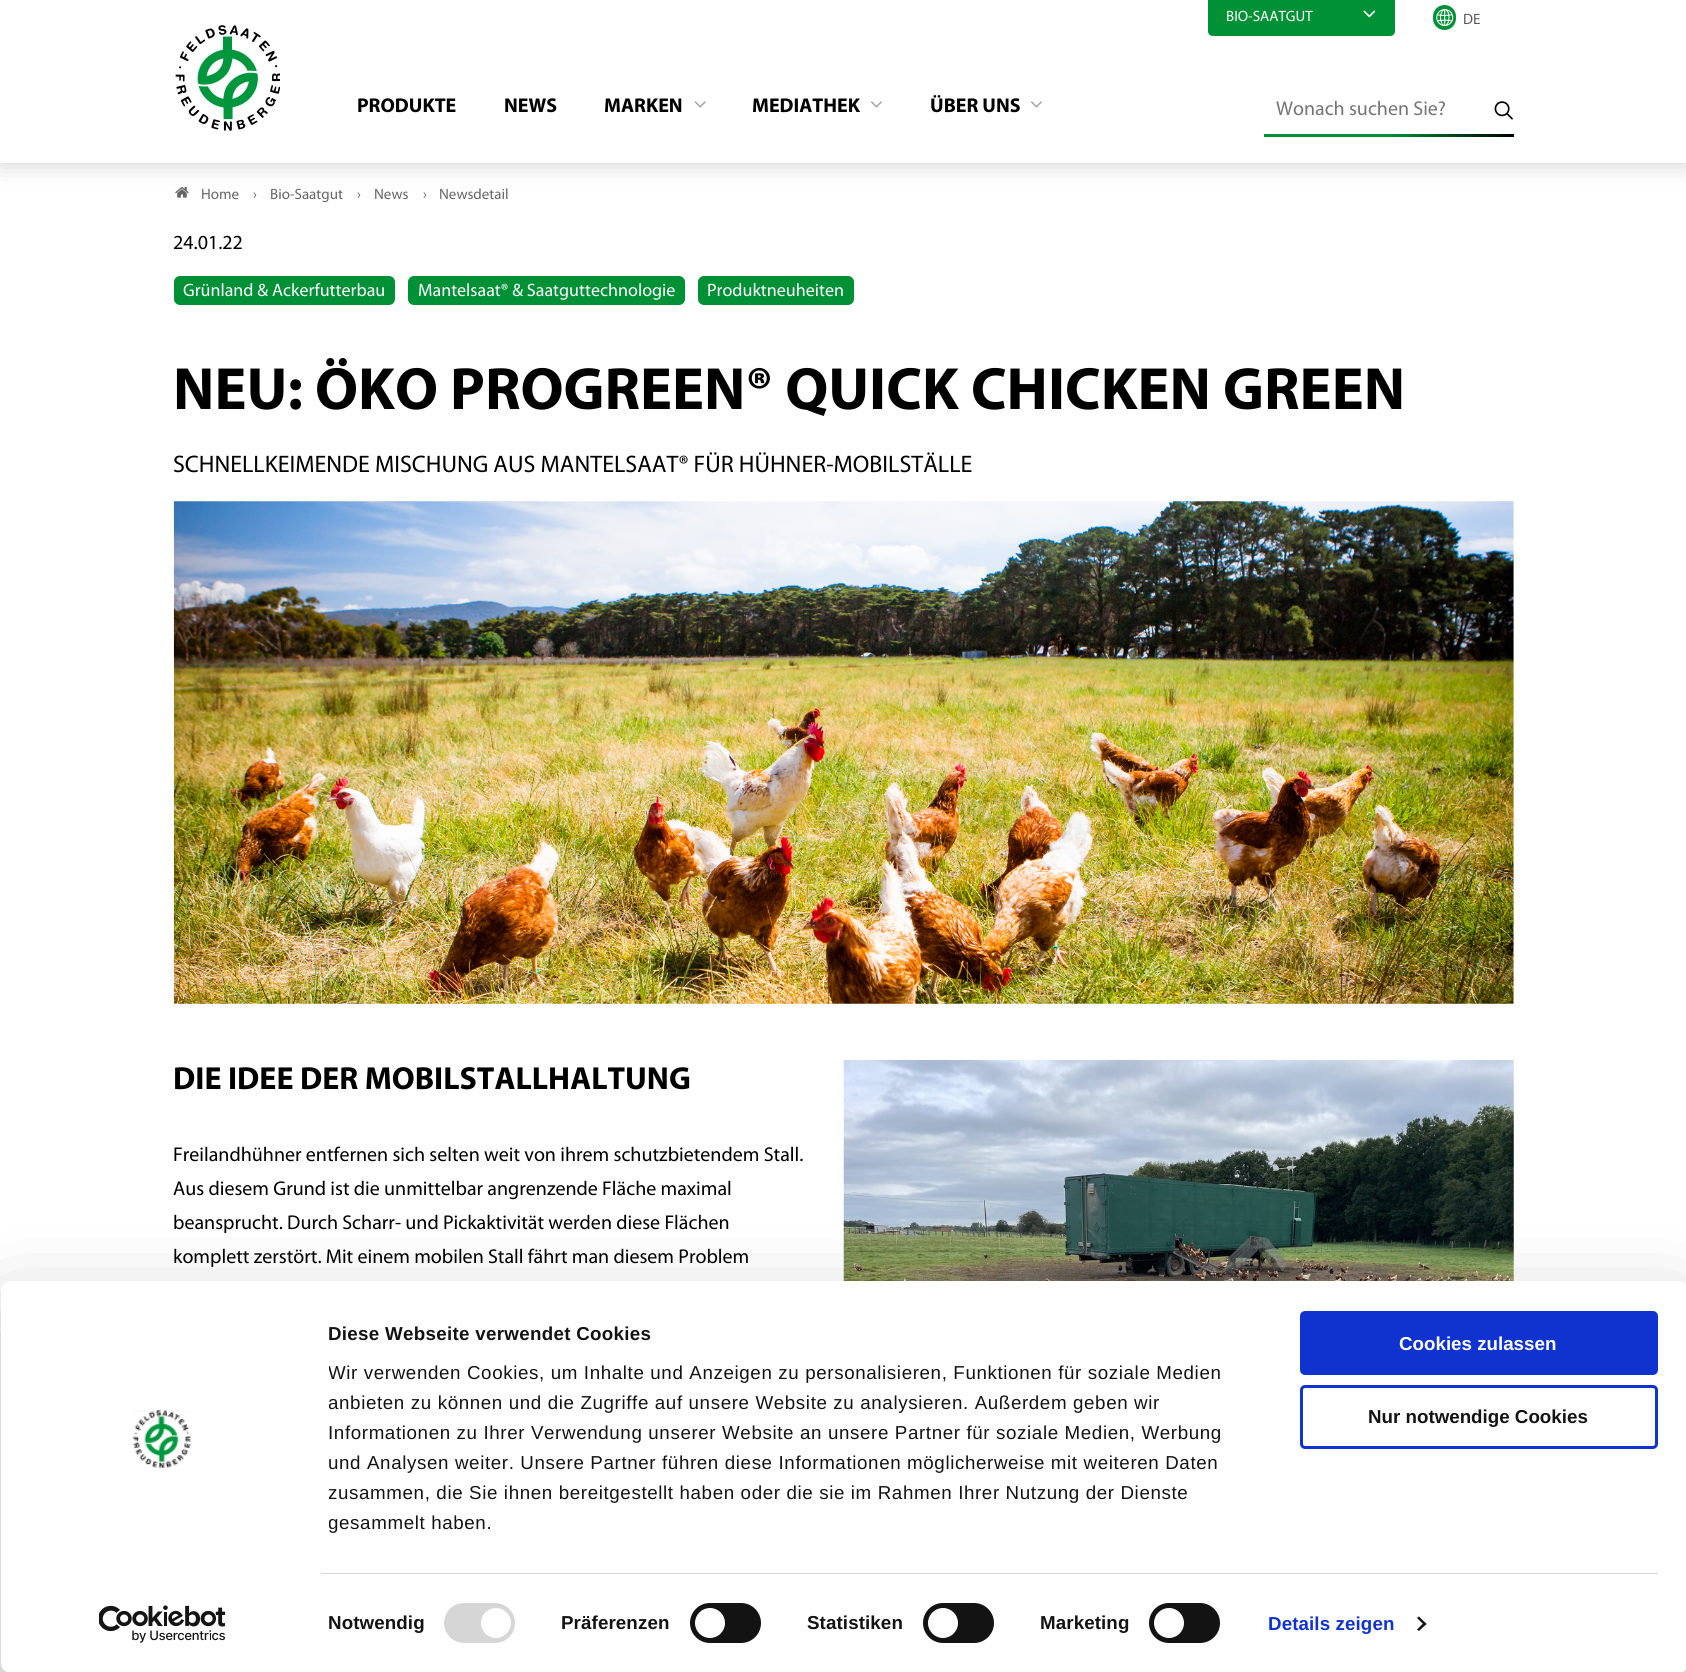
import math
import cairo

surface = cairo.ImageSurface(cairo.FORMAT_RGB24, 1686, 1672)
ctx = cairo.Context(surface)
options = cairo.FontOptions()
options.set_hint_metrics(cairo.HINT_METRICS_OFF)
options.set_hint_style(cairo.HINT_STYLE_NONE)
ctx.set_font_options(options)
ctx.set_miter_limit(4)


def spaced_text(x, y, s, letter, word):
    ctx.move_to(x, y)
    for ch in s:
        ctx.show_text(ch)
        ctx.rel_move_to(letter + word * (ch == ' '), 0)


def round_rect(x, y, w, h, r):
    ctx.new_sub_path()
    for i, (u, v) in enumerate([(x + w - r, y + h - r), (x + r, y + h - r), (x + r, y + r), (x + w - r, y + r)]):
        ctx.arc(u, v, r, i * math.pi / 2, (i + 1) * math.pi / 2)
    ctx.close_path()


def shadow(x, y, w, h, r, blur, alpha):
    ctx.push_group_with_content(cairo.CONTENT_ALPHA)
    ctx.set_operator(cairo.OPERATOR_SOURCE)
    for i in range(15, -16, -2):
        e = blur * i / 6
        if min(w, h) + 2 * e > 0:
            ctx.set_source_rgba(0, 0, 0, alpha * math.erfc((i - 1) / 8.5) / 2)
            round_rect(x - e, y - e, w + 2 * e, h + 2 * e, max(0, min(r + e + blur * .6, min(w, h) / 2 + e)))
            ctx.fill()
    ctx.mask(ctx.pop_group())


def picture(path, x, y, w, h):
    ctx.save()
    ctx.set_source_surface(cairo.ImageSurface.create_from_png(path), x, y)
    ctx.rectangle(x, y, w, h)
    ctx.fill()
    ctx.restore()


ctx.set_source_rgb(1, 1, 1)
ctx.paint()
picture("img7.png", 175, 187, 14, 11)
ctx.set_source_rgb(0, 0, 0)
shadow(0, 0, 1686, 163, 0, 12.5, 0.2)
ctx.set_source_rgb(1, 1, 1)
ctx.rectangle(0, 0, 1686, 163)
ctx.fill()
picture("img1.png", 175, 25, 105, 106)
ctx.set_source_rgb(0, 0.565, 0.212)
ctx.new_path()
ctx.move_to(1208, -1)
ctx.line_to(1395, -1)
ctx.line_to(1395, 31)
ctx.curve_to(1395, 34, 1393, 36, 1390, 36)
ctx.line_to(1213, 36)
ctx.curve_to(1210, 36, 1208, 34, 1208, 31)
ctx.close_path()
ctx.fill()
ctx.select_font_face("Myriad")
ctx.set_font_size(15)
ctx.set_source_rgb(1, 1, 1)
ctx.move_to(1226, 21)
ctx.show_text("BIO-SAATGUT")
picture("img2.png", 1363, 10, 13, 8)
ctx.set_source_rgb(0, 0.565, 0.212)
round_rect(1433, 5, 23, 25, 11.5)
ctx.fill()
picture("img3.png", 1436, 9, 18, 18)
ctx.set_source_rgb(0.349, 0.349, 0.349)
ctx.move_to(1463, 24)
ctx.show_text("DE")
ctx.select_font_face("Myriad", cairo.FONT_SLANT_NORMAL, cairo.FONT_WEIGHT_BOLD)
ctx.set_font_size(20)
ctx.set_source_rgb(0, 0, 0)
ctx.move_to(357, 112)
ctx.show_text("PRODUKTE")
ctx.move_to(504, 112)
ctx.show_text("NEWS")
ctx.move_to(604, 112)
ctx.show_text("MARKEN")
picture("img4.png", 694, 101, 12, 7)
ctx.move_to(752, 112)
ctx.show_text("MEDIATHEK")
picture("img5.png", 871, 101, 11, 7)
ctx.move_to(930, 112)
ctx.show_text("ÜBER UNS")
picture("img5.png", 1031, 101, 11, 7)
ctx.select_font_face("Myriad")
ctx.set_source_rgb(0.459, 0.459, 0.459)
ctx.move_to(1276, 115)
ctx.show_text("Wonach suchen Sie?")
picture("img6.png", 1494, 101, 19, 19)
gradient = cairo.LinearGradient(1264, 135, 1514, 135)
gradient.add_color_stop_rgba(0.5, 0, 0.565, 0.212, 1)
gradient.add_color_stop_rgba(1, 0, 0, 0, 1)
ctx.set_source(gradient)
ctx.rectangle(1264, 134, 250, 3)
ctx.fill()
ctx.set_font_size(15)
ctx.set_source_rgb(0.4, 0.4, 0.4)
ctx.move_to(201, 199)
ctx.show_text("Home")
ctx.move_to(253, 199)
ctx.show_text("›")
ctx.move_to(270, 199)
ctx.show_text("Bio-Saatgut")
ctx.move_to(357, 199)
ctx.show_text("›")
ctx.move_to(374, 199)
ctx.show_text("News")
ctx.move_to(423, 199)
ctx.show_text("›")
ctx.move_to(439, 199)
ctx.show_text("Newsdetail")
ctx.set_font_size(20)
ctx.set_source_rgb(0, 0, 0)
ctx.move_to(173, 249)
ctx.show_text("24.01.22")
ctx.set_source_rgb(0, 0.565, 0.212)
round_rect(174, 276, 221, 29, 6)
ctx.fill()
ctx.set_font_size(18)
ctx.set_source_rgb(1, 1, 1)
ctx.move_to(183, 296)
ctx.show_text("Grünland & Ackerfutterbau")
ctx.set_source_rgb(0, 0.565, 0.212)
round_rect(408, 276, 277, 29, 6)
ctx.fill()
ctx.set_source_rgb(1, 1, 1)
ctx.move_to(418, 296)
ctx.show_text("Mantelsaat® & Saatguttechnologie")
ctx.set_source_rgb(0, 0.565, 0.212)
round_rect(698, 276, 156, 29, 6)
ctx.fill()
ctx.set_source_rgb(1, 1, 1)
ctx.move_to(707, 296)
ctx.show_text("Produktneuheiten")
ctx.select_font_face("Myriad", cairo.FONT_SLANT_NORMAL, cairo.FONT_WEIGHT_BOLD)
ctx.set_font_size(60)
ctx.set_source_rgb(0, 0, 0)
ctx.move_to(173, 409)
ctx.show_text("NEU: ÖKO PROGREEN® QUICK CHICKEN GREEN")
ctx.select_font_face("Myriad")
ctx.set_font_size(24)
ctx.move_to(173, 472)
ctx.show_text("SCHNELLKEIMENDE MISCHUNG AUS MANTELSAAT® FÜR HÜHNER-MOBILSTÄLLE")
picture("img8.png", 173, 501, 1341, 503)
ctx.select_font_face("Myriad", cairo.FONT_SLANT_NORMAL, cairo.FONT_WEIGHT_BOLD)
ctx.set_font_size(32)
ctx.move_to(173, 1089)
ctx.show_text("DIE IDEE DER MOBILSTALLHALTUNG")
ctx.select_font_face("Myriad")
ctx.set_font_size(20)
ctx.move_to(173, 1161)
ctx.show_text("Freilandhühner entfernen sich selten weit von ihrem schutzbietendem Stall.")
ctx.move_to(173, 1195)
ctx.show_text("Aus diesem Grund ist die unmittelbar angrenzende Fläche maximal")
ctx.move_to(173, 1229)
ctx.show_text("beansprucht. Durch Scharr- und Pickaktivität werden diese Flächen")
ctx.move_to(173, 1263)
ctx.show_text("komplett zerstört. Mit einem mobilen Stall fährt man diesem Problem")
picture("img9.png", 843, 1060, 671, 221)
ctx.set_source_rgb(0, 0, 0)
shadow(1, 1319, 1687, 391, 10, 44, 0.3)
ctx.set_source_rgb(1, 1, 1)
round_rect(1, 1281, 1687, 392, 10)
ctx.fill()
ctx.save()
ctx.rectangle(329, 1319, 935, 219)
ctx.clip()
ctx.select_font_face("Liberation Sans", cairo.FONT_SLANT_NORMAL, cairo.FONT_WEIGHT_BOLD)
ctx.set_font_size(18.75)
ctx.set_source_rgb(0.078, 0.078, 0.078)
spaced_text(328, 1340, "Diese Webseite verwendet Cookies", 0.3, 0)
ctx.select_font_face("Liberation Sans")
spaced_text(328, 1379, "Wir verwenden Cookies, um Inhalte und Anzeigen zu personalisieren, Funktionen für soziale Medien", 0.62, 0)
spaced_text(328, 1409, "anbieten zu können und die Zugriffe auf unsere Website zu analysieren. Außerdem geben wir", 0.62, 0)
ctx.restore()
ctx.select_font_face("Liberation Sans")
ctx.set_font_size(18.75)
ctx.set_source_rgb(0.078, 0.078, 0.078)
spaced_text(328, 1439, "Informationen zu Ihrer Verwendung unserer Website an unsere Partner für soziale Medien, Werbung", 0.62, 0)
ctx.save()
ctx.rectangle(329, 1319, 935, 219)
ctx.clip()
spaced_text(328, 1469, "und Analysen weiter. Unsere Partner führen diese Informationen möglicherweise mit weiteren Daten", 0.62, 0)
spaced_text(328, 1499, "zusammen, die Sie ihnen bereitgestellt haben oder die sie im Rahmen Ihrer Nutzung der Dienste", 0.62, 0)
spaced_text(328, 1529, "gesammelt haben.", 0.62, 0)
ctx.restore()
ctx.set_source_rgb(0.839, 0.839, 0.839)
ctx.rectangle(321, 1573, 1337, 1)
ctx.fill()
ctx.select_font_face("Liberation Sans", cairo.FONT_SLANT_NORMAL, cairo.FONT_WEIGHT_BOLD)
ctx.set_source_rgb(0.078, 0.078, 0.078)
spaced_text(328, 1629, "Notwendig", 0.1, 0)
ctx.set_source_rgb(0.839, 0.839, 0.839)
round_rect(444, 1603, 71, 40, 20)
ctx.fill()
ctx.set_source_rgb(1, 1, 1)
ctx.arc(496, 1623, 15, 0, 2 * math.pi)
ctx.fill()
ctx.set_source_rgb(0.078, 0.078, 0.078)
spaced_text(561, 1629, "Präferenzen", 0.1, 0)
round_rect(690, 1603, 71, 40, 20)
ctx.fill()
ctx.set_source_rgb(1, 1, 1)
ctx.arc(710, 1623, 15, 0, 2 * math.pi)
ctx.fill()
ctx.set_source_rgb(0.078, 0.078, 0.078)
spaced_text(807, 1629, "Statistiken", 0.1, 0)
round_rect(923, 1603, 71, 40, 20)
ctx.fill()
ctx.set_source_rgb(1, 1, 1)
ctx.arc(943, 1623, 15, 0, 2 * math.pi)
ctx.fill()
ctx.set_source_rgb(0.078, 0.078, 0.078)
spaced_text(1040, 1629, "Marketing", 0.1, 0)
round_rect(1149, 1603, 71, 40, 20)
ctx.fill()
ctx.set_source_rgb(1, 1, 1)
ctx.arc(1169, 1623, 15, 0, 2 * math.pi)
ctx.fill()
ctx.set_source_rgb(0.063, 0.196, 0.812)
spaced_text(1268, 1630, "Details zeigen", 0.1, 0)
ctx.set_source_rgb(0.078, 0.078, 0.078)
ctx.new_path()
ctx.move_to(1419, 1616.5)
ctx.line_to(1426.5, 1624)
ctx.line_to(1424.5, 1625.5)
ctx.line_to(1417, 1618)
ctx.close_path()
ctx.fill()
ctx.new_path()
ctx.move_to(1424.5, 1622)
ctx.line_to(1426.5, 1624)
ctx.line_to(1419, 1631)
ctx.line_to(1417, 1629.5)
ctx.close_path()
ctx.fill()
ctx.set_source_rgb(0.063, 0.196, 0.812)
round_rect(1301.5, 1312.5, 355, 61, 3.5)
ctx.fill_preserve()
ctx.set_line_width(3)
ctx.stroke()
ctx.set_source_rgb(1, 1, 1)
ctx.move_to(1399, 1350)
ctx.show_text("Cookies zulassen")
round_rect(1301.5, 1386.5, 355, 61, 3.5)
ctx.set_source_rgb(0.063, 0.196, 0.812)
ctx.stroke()
ctx.set_source_rgb(0.078, 0.078, 0.078)
ctx.move_to(1368, 1423)
ctx.show_text("Nur notwendige Cookies")
picture("img10.png", 133, 1410, 58, 58)
picture("img11.png", 99, 1605, 126, 38)
surface.write_to_png("page.png")
